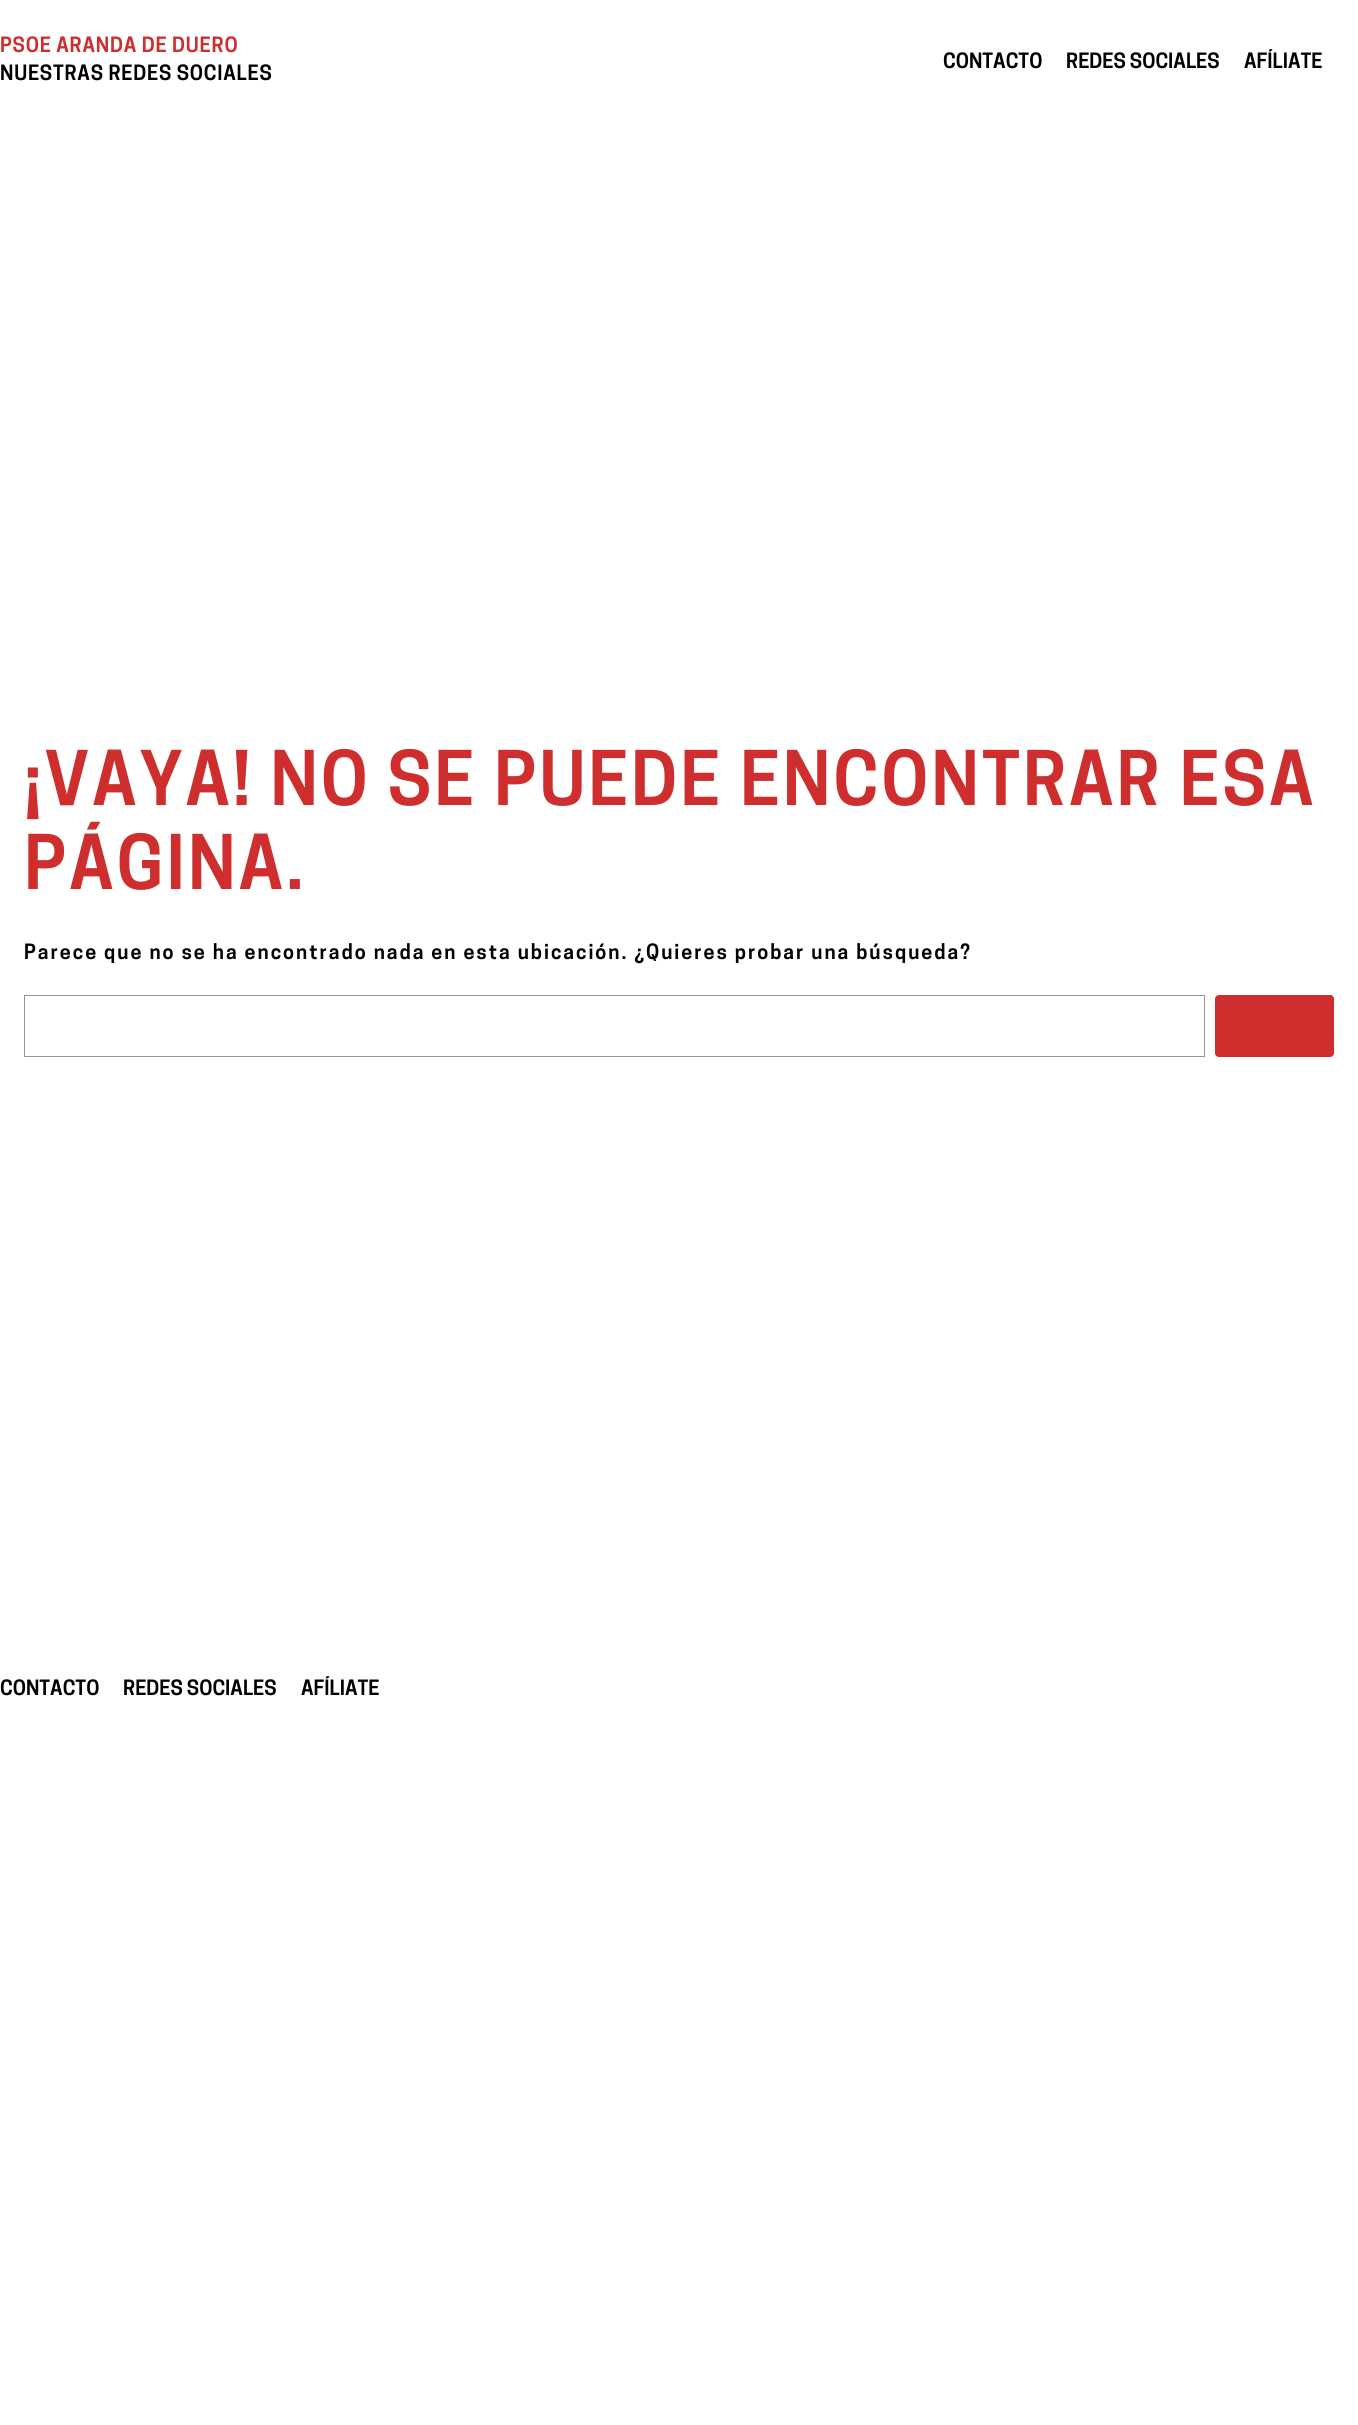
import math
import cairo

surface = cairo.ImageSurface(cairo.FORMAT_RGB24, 1358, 2425)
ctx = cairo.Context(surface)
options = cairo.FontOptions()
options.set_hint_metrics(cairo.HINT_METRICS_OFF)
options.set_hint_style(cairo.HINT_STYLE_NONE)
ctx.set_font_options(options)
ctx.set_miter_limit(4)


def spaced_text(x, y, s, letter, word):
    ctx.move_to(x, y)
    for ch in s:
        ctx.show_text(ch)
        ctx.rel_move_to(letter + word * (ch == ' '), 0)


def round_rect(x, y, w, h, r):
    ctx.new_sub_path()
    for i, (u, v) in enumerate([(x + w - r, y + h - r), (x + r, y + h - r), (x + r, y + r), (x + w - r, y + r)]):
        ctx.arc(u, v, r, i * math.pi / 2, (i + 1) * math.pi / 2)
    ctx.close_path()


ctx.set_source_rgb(1, 1, 1)
ctx.paint()
ctx.select_font_face("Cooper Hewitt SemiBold")
ctx.set_font_size(19.85)
ctx.set_source_rgb(0.812, 0.18, 0.18)
spaced_text(0, 52, "PSOE ARANDA DE DUERO", 0.75, 0)
ctx.set_source_rgb(0, 0, 0)
spaced_text(0, 80, "NUESTRAS REDES SOCIALES", 0.75, 0)
ctx.move_to(943, 68)
ctx.show_text("CONTACTO")
ctx.move_to(1066, 68)
ctx.show_text("REDES SOCIALES")
ctx.move_to(1244, 68)
ctx.show_text("AFÍLIATE")
ctx.set_font_size(70.75)
ctx.set_source_rgb(0.812, 0.18, 0.18)
spaced_text(24, 805, "¡VAYA! NO SE PUEDE ENCONTRAR ESA", 2.8, 0)
spaced_text(24, 889, "PÁGINA.", 2.8, 0)
ctx.set_font_size(19.85)
ctx.set_source_rgb(0, 0, 0)
spaced_text(24, 959, "Parece que no se ha encontrado nada en esta ubicación. ¿Quieres probar una búsqueda?", 1.98, 0)
ctx.rectangle(24.5, 995.5, 1180, 61)
ctx.set_source_rgb(0.58, 0.58, 0.58)
ctx.set_line_width(1)
ctx.stroke()
ctx.set_source_rgb(0.812, 0.18, 0.18)
round_rect(1215, 995, 119, 62, 4)
ctx.fill()
ctx.set_source_rgb(0, 0, 0)
ctx.move_to(0, 1695)
ctx.show_text("CONTACTO")
ctx.move_to(123, 1695)
ctx.show_text("REDES SOCIALES")
ctx.move_to(301, 1695)
ctx.show_text("AFÍLIATE")
surface.write_to_png("page.png")
